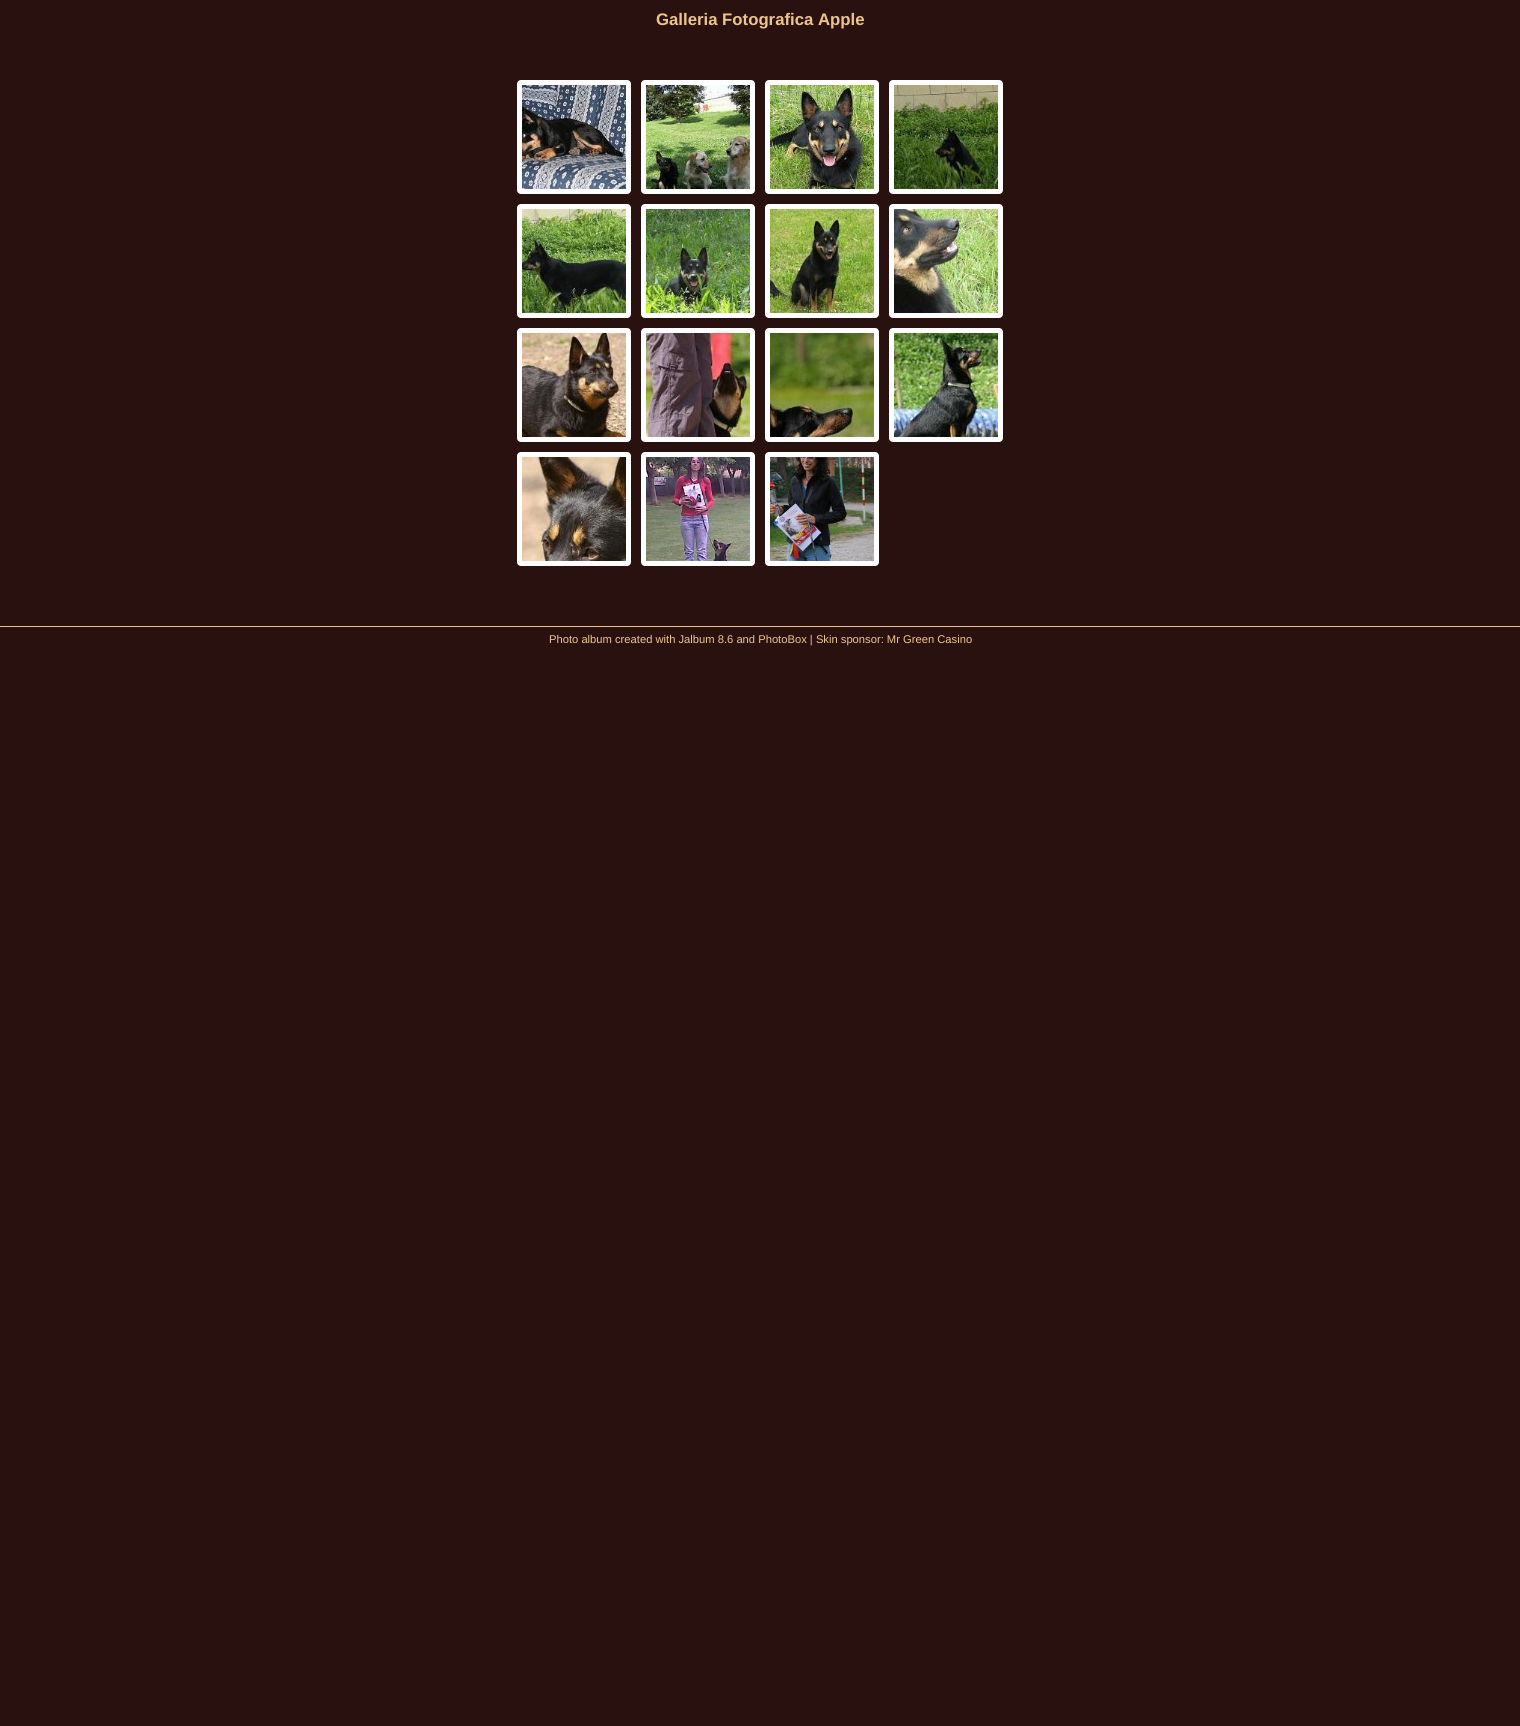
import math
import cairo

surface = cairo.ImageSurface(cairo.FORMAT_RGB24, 1520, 1726)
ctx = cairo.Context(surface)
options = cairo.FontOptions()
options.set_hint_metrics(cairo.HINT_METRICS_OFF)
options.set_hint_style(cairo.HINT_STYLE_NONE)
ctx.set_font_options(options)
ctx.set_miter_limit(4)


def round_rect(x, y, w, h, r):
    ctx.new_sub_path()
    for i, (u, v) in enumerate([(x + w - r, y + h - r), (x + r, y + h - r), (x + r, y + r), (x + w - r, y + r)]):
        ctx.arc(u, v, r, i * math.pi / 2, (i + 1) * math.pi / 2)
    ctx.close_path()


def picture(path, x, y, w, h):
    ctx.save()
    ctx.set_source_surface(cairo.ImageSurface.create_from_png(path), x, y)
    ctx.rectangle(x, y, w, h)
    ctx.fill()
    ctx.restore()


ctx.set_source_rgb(0.161, 0.067, 0.063)
ctx.paint()
ctx.select_font_face("Liberation Sans", cairo.FONT_SLANT_NORMAL, cairo.FONT_WEIGHT_BOLD)
ctx.set_font_size(16.75)
ctx.set_source_rgb(0.933, 0.773, 0.537)
ctx.move_to(656, 25)
ctx.show_text("Galleria Fotografica Apple")
ctx.set_source_rgb(1, 1, 1)
round_rect(517, 80, 114, 114, 4)
ctx.fill()
picture("img1.png", 522, 85, 104, 104)
round_rect(641, 80, 114, 114, 4)
ctx.fill()
picture("img2.png", 646, 85, 104, 104)
round_rect(765, 80, 114, 114, 4)
ctx.fill()
picture("img3.png", 770, 85, 104, 104)
round_rect(889, 80, 114, 114, 4)
ctx.fill()
picture("img4.png", 894, 85, 104, 104)
round_rect(517, 204, 114, 114, 4)
ctx.fill()
picture("img5.png", 522, 209, 104, 104)
round_rect(641, 204, 114, 114, 4)
ctx.fill()
picture("img6.png", 646, 209, 104, 104)
round_rect(765, 204, 114, 114, 4)
ctx.fill()
picture("img7.png", 770, 209, 104, 104)
round_rect(889, 204, 114, 114, 4)
ctx.fill()
picture("img8.png", 894, 209, 104, 104)
round_rect(517, 328, 114, 114, 4)
ctx.fill()
picture("img9.png", 522, 333, 104, 104)
round_rect(641, 328, 114, 114, 4)
ctx.fill()
picture("img10.png", 646, 333, 104, 104)
round_rect(765, 328, 114, 114, 4)
ctx.fill()
picture("img11.png", 770, 333, 104, 104)
round_rect(889, 328, 114, 114, 4)
ctx.fill()
picture("img12.png", 894, 333, 104, 104)
round_rect(517, 452, 114, 114, 4)
ctx.fill()
picture("img13.png", 522, 457, 104, 104)
round_rect(641, 452, 114, 114, 4)
ctx.fill()
picture("img14.png", 646, 457, 104, 104)
round_rect(765, 452, 114, 114, 4)
ctx.fill()
picture("img15.png", 770, 457, 104, 104)
ctx.set_source_rgb(0.933, 0.773, 0.537)
ctx.rectangle(0, 626, 1520, 1)
ctx.fill()
ctx.select_font_face("Liberation Sans")
ctx.set_font_size(11.2)
ctx.move_to(549, 643)
ctx.show_text("Photo album created with Jalbum 8.6 and PhotoBox | Skin sponsor: Mr Green Casino")
surface.write_to_png("page.png")
